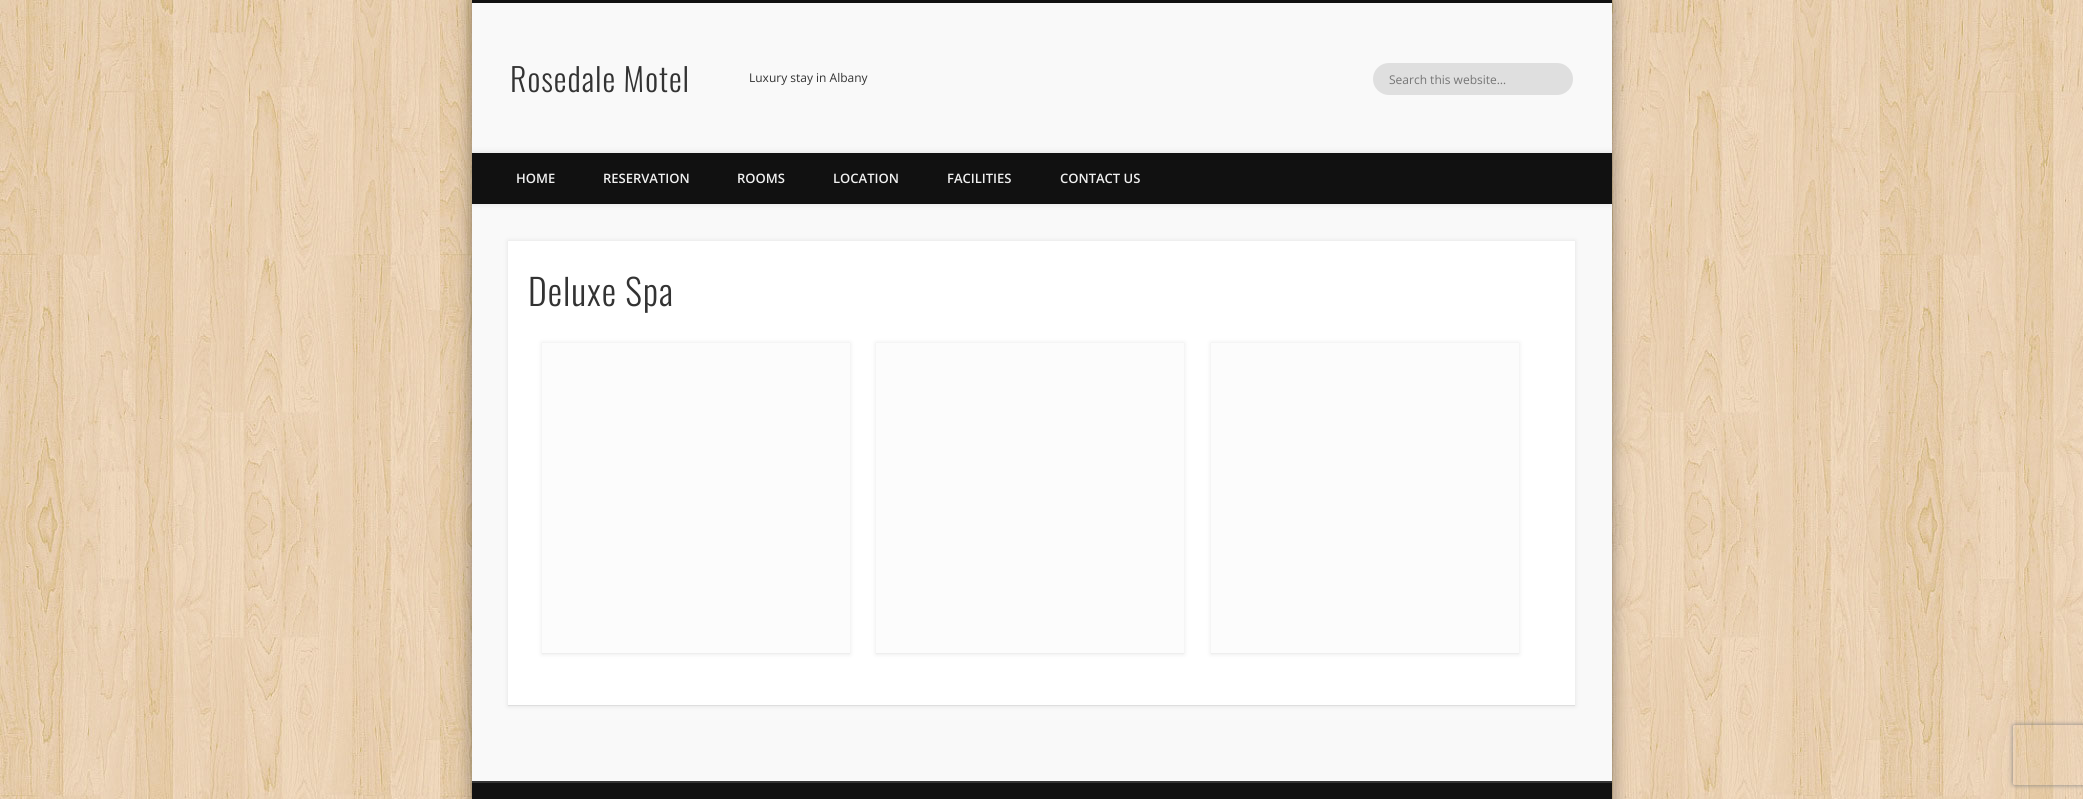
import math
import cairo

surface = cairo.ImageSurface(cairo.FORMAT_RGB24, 2083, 799)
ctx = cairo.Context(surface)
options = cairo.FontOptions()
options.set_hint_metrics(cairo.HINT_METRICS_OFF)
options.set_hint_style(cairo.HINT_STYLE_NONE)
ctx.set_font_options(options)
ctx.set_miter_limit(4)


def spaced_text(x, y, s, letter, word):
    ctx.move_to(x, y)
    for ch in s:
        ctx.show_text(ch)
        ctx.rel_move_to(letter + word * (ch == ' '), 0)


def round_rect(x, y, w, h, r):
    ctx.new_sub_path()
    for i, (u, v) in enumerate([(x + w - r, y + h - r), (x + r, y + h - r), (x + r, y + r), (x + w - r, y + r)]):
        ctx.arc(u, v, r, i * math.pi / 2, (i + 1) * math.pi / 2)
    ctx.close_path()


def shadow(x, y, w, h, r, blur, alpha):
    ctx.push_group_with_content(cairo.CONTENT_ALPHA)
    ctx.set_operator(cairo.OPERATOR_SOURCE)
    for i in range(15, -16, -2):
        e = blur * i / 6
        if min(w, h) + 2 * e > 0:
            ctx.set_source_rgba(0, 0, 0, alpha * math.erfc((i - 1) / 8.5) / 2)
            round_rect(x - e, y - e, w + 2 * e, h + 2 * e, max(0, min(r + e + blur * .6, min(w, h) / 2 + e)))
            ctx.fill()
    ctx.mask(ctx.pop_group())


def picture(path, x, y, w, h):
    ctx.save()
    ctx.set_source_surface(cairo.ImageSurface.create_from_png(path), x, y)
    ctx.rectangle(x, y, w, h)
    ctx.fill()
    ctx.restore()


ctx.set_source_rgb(1, 1, 1)
ctx.paint()
picture("img1.png", 0, 0, 2083, 799)
ctx.set_source_rgb(0, 0, 0)
shadow(472, 0, 1140, 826, 0, 9, 0.4)
ctx.set_source_rgb(0.973, 0.973, 0.973)
ctx.rectangle(472, 3, 1140, 778)
ctx.fill()
ctx.set_source_rgb(0.067, 0.067, 0.067)
ctx.rectangle(472, 0, 1140, 3)
ctx.fill()
ctx.select_font_face("Oswald Light")
ctx.set_font_size(32)
ctx.set_source_rgb(0.2, 0.2, 0.2)
spaced_text(510, 92, "Rosedale Motel", 1, 0)
ctx.select_font_face("Open Sans")
ctx.set_font_size(12)
ctx.move_to(749, 82)
ctx.show_text("Luxury stay in Albany")
ctx.set_source_rgb(0.875, 0.875, 0.875)
round_rect(1373, 63, 200, 32, 16)
ctx.fill()
ctx.set_source_rgb(0.459, 0.459, 0.459)
ctx.move_to(1389, 84)
ctx.show_text("Search this website…")
ctx.save()
ctx.rectangle(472, 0, 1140, 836)
ctx.clip()
ctx.set_source_rgb(0, 0, 0)
shadow(472, 153, 1140, 51, 0, 3.5, 0.1)
ctx.restore()
ctx.set_source_rgb(0.067, 0.067, 0.067)
ctx.rectangle(472, 153, 1140, 51)
ctx.fill()
ctx.select_font_face("Open Sans SemiBold")
ctx.set_font_size(13)
ctx.set_source_rgb(0.941, 0.941, 0.941)
ctx.move_to(516, 183)
ctx.show_text("HOME")
ctx.move_to(603, 183)
ctx.show_text("RESERVATION")
ctx.move_to(737, 183)
ctx.show_text("ROOMS")
ctx.move_to(833, 183)
ctx.show_text("LOCATION")
ctx.move_to(947, 183)
ctx.show_text("FACILITIES")
ctx.move_to(1060, 183)
ctx.show_text("CONTACT US")
ctx.set_source_rgb(0, 0, 0)
shadow(508, 241, 1067, 465, 0, 2.5, 0.1)
ctx.set_source_rgb(1, 1, 1)
ctx.rectangle(508, 241, 1067, 464)
ctx.fill()
ctx.set_source_rgb(0.871, 0.871, 0.871)
ctx.rectangle(508, 705, 1067, 1)
ctx.fill()
ctx.select_font_face("Oswald Light")
ctx.set_font_size(36)
ctx.set_source_rgb(0.2, 0.2, 0.2)
spaced_text(528, 306, "Deluxe Spa", 1, 0)
ctx.set_source_rgb(0, 0, 0)
shadow(542, 343, 308, 311, 0, 2.5, 0.1)
ctx.set_source_rgb(0.988, 0.988, 0.988)
ctx.rectangle(542, 343, 308, 310)
ctx.fill()
ctx.set_source_rgb(0.933, 0.933, 0.933)
ctx.rectangle(542, 653, 308, 1)
ctx.fill()
ctx.set_source_rgb(0, 0, 0)
shadow(876, 343, 308, 311, 0, 2.5, 0.1)
ctx.set_source_rgb(0.988, 0.988, 0.988)
ctx.rectangle(876, 343, 308, 310)
ctx.fill()
ctx.set_source_rgb(0.933, 0.933, 0.933)
ctx.rectangle(876, 653, 308, 1)
ctx.fill()
ctx.set_source_rgb(0, 0, 0)
shadow(1211, 343, 308, 311, 0, 2.5, 0.1)
ctx.set_source_rgb(0.988, 0.988, 0.988)
ctx.rectangle(1211, 343, 308, 310)
ctx.fill()
ctx.set_source_rgb(0.933, 0.933, 0.933)
ctx.rectangle(1211, 653, 308, 1)
ctx.fill()
ctx.set_source_rgb(0.204, 0.204, 0.204)
ctx.rectangle(472, 781, 1140, 2)
ctx.fill()
ctx.set_source_rgb(0.067, 0.067, 0.067)
ctx.rectangle(472, 783, 1140, 16)
ctx.fill()
ctx.save()
ctx.set_fill_rule(cairo.FILL_RULE_EVEN_ODD)
ctx.new_path()
ctx.move_to(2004, 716)
ctx.line_to(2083, 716)
ctx.line_to(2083, 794)
ctx.line_to(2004, 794)
ctx.close_path()
ctx.move_to(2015, 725)
ctx.line_to(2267, 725)
ctx.curve_to(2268, 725, 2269, 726, 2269, 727)
ctx.line_to(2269, 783)
ctx.curve_to(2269, 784, 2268, 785, 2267, 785)
ctx.line_to(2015, 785)
ctx.curve_to(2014, 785, 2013, 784, 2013, 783)
ctx.line_to(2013, 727)
ctx.curve_to(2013, 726, 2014, 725, 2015, 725)
ctx.close_path()
ctx.clip()
ctx.set_source_rgb(0.502, 0.502, 0.502)
shadow(2013, 725, 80, 60, 2, 2.5, 1)
ctx.restore()
surface.write_to_png("page.png")
